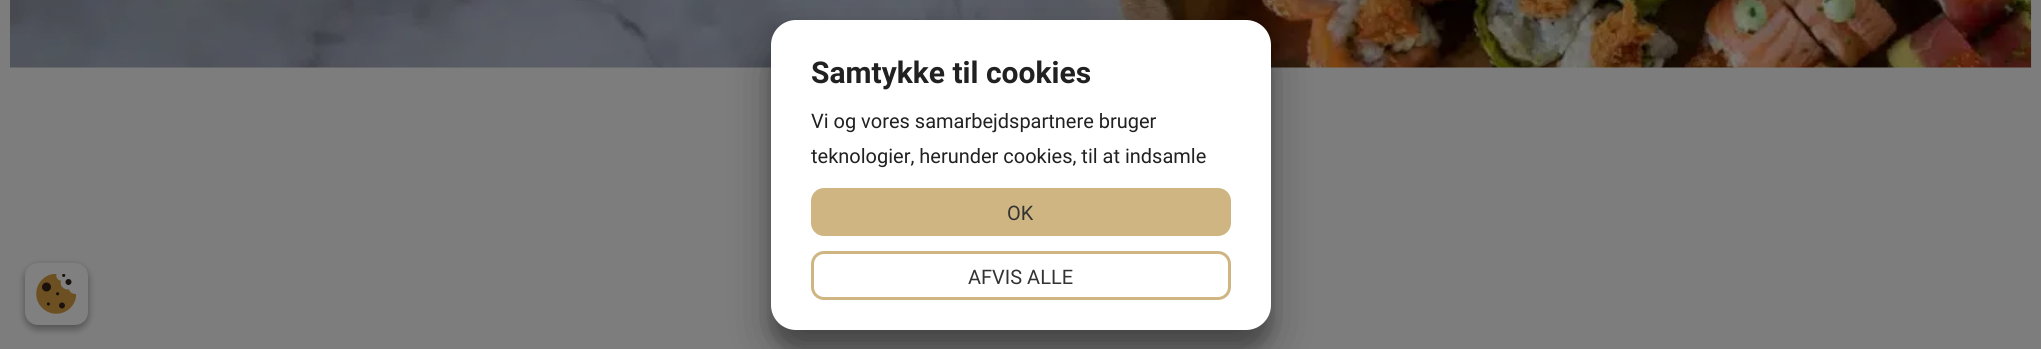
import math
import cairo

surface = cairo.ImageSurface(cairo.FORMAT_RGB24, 2041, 349)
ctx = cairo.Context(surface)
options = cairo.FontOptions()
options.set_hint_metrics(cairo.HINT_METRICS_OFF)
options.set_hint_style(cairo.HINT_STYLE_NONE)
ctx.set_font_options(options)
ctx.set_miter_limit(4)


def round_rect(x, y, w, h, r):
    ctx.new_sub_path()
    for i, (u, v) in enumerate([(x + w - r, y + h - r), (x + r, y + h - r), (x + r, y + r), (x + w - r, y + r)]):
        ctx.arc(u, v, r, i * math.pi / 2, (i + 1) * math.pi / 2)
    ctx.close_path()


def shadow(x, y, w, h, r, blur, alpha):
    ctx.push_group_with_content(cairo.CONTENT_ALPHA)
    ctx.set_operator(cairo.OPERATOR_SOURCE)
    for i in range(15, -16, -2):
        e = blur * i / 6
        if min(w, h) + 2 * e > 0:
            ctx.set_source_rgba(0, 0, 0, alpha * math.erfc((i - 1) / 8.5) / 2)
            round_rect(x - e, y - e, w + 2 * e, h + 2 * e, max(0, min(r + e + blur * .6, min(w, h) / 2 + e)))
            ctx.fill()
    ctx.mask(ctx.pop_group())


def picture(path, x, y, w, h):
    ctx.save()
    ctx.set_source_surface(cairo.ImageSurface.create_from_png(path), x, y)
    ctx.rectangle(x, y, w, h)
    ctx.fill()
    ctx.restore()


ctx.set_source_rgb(0.49, 0.49, 0.49)
ctx.paint()
picture("img1.png", 10, 0, 2022, 68)
ctx.set_source_rgb(0, 0, 0)
shadow(771, 39, 500, 310, 25, 7.5, 0.22)
shadow(771, 44, 500, 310, 25, 24, 0.3)
ctx.set_source_rgb(1, 1, 1)
round_rect(771, 20, 500, 310, 25)
ctx.fill()
ctx.select_font_face("Roboto", cairo.FONT_SLANT_NORMAL, cairo.FONT_WEIGHT_BOLD)
ctx.set_font_size(30)
ctx.set_source_rgb(0.129, 0.129, 0.129)
ctx.move_to(811, 83)
ctx.show_text("Samtykke til cookies")
ctx.select_font_face("Roboto")
ctx.set_font_size(20)
ctx.move_to(811, 128)
ctx.show_text("Vi og vores samarbejdspartnere bruger")
ctx.move_to(811, 163)
ctx.show_text("teknologier, herunder cookies, til at indsamle")
ctx.set_source_rgb(0.808, 0.71, 0.51)
round_rect(812.5, 189.5, 417, 45, 11.5)
ctx.fill_preserve()
ctx.set_line_width(3)
ctx.stroke()
ctx.set_source_rgb(0.2, 0.2, 0.2)
ctx.move_to(1007, 220)
ctx.show_text("OK")
round_rect(812.5, 252.5, 417, 46, 11.5)
ctx.set_source_rgb(0.808, 0.71, 0.51)
ctx.stroke()
ctx.set_source_rgb(0.2, 0.2, 0.2)
ctx.move_to(968, 284)
ctx.show_text("AFVIS ALLE")
ctx.set_source_rgb(0, 0, 0)
shadow(25, 266, 63, 63, 13, 4, 0.23)
shadow(25, 266, 63, 63, 13, 4, 0.16)
ctx.set_source_rgb(0.502, 0.502, 0.502)
round_rect(25, 263, 63, 62, 13)
ctx.fill()
picture("img2.png", 36, 274, 40, 40)
surface.write_to_png("page.png")
